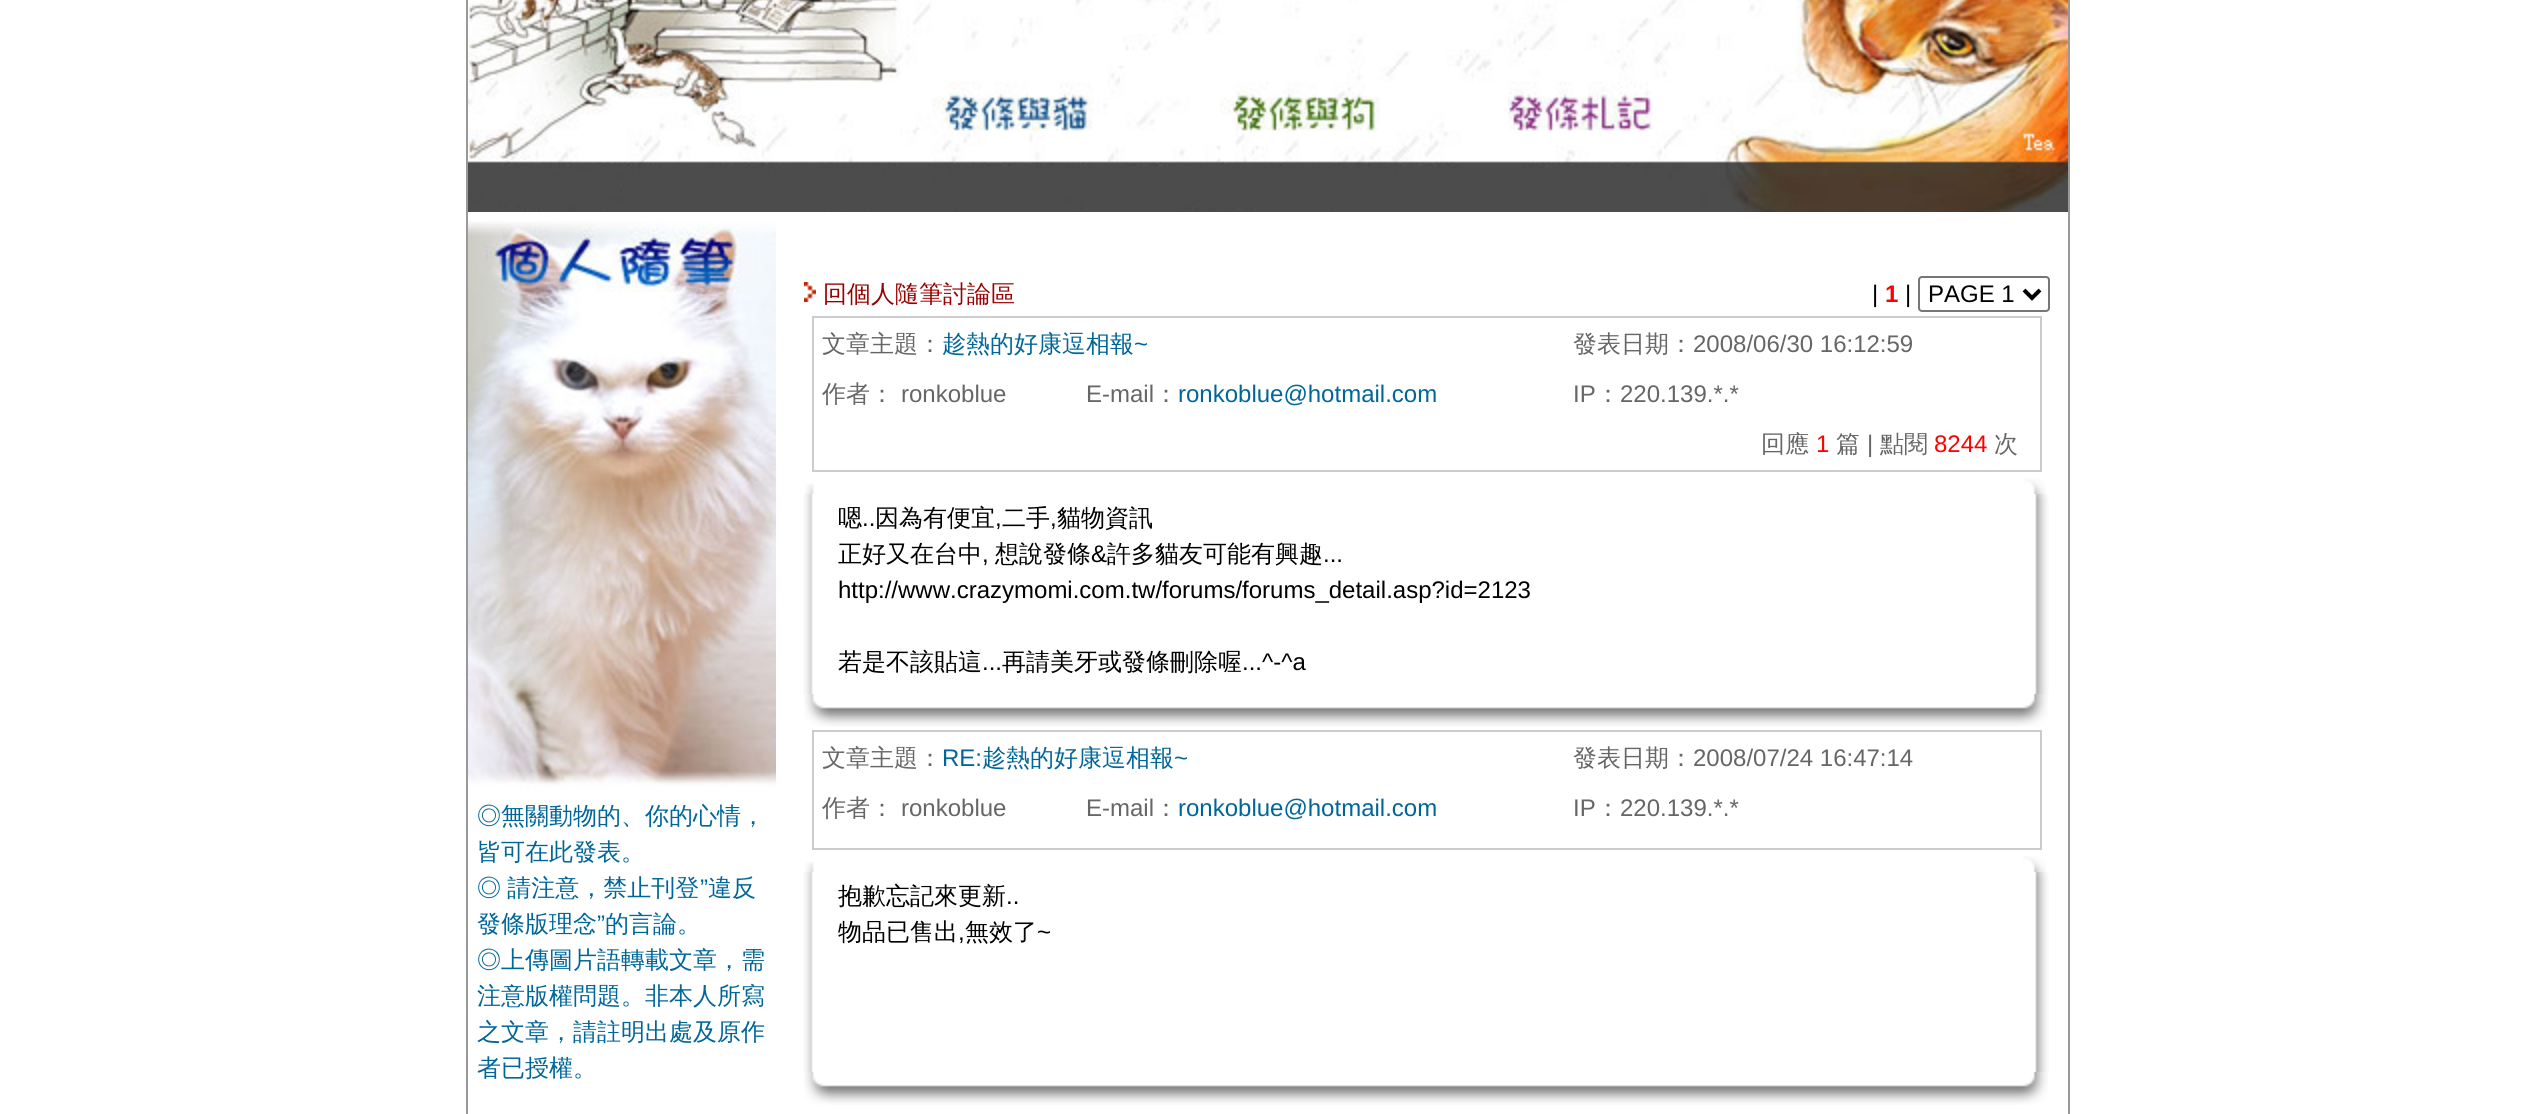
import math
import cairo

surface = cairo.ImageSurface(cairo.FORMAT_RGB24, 2533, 1114)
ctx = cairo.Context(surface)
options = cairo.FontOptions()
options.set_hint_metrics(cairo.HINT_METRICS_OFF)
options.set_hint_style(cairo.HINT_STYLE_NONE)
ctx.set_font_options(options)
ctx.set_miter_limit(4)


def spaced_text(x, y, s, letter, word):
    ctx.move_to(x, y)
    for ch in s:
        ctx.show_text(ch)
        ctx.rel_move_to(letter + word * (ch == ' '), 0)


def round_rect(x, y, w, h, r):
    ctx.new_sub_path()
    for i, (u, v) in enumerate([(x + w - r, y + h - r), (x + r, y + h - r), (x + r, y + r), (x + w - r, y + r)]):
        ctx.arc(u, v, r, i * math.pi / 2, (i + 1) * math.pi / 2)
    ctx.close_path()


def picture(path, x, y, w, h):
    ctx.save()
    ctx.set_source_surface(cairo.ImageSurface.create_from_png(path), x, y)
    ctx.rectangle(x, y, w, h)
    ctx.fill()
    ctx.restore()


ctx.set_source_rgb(1, 1, 1)
ctx.paint()
ctx.set_source_rgb(0.6, 0.6, 0.6)
ctx.rectangle(466, 0, 1604, 1114)
ctx.fill()
ctx.set_source_rgb(1, 1, 1)
ctx.rectangle(468, 212, 1600, 902)
ctx.fill()
picture("img1.png", 468, 0, 1600, 212)
picture("img2.png", 468, 221, 308, 567)
ctx.select_font_face("WenQuanYi Zen Hei Medium")
ctx.set_font_size(24)
ctx.set_source_rgb(0, 0.4, 0.6)
ctx.move_to(477, 824)
ctx.show_text("◎無關動物的、你的心情，")
ctx.move_to(477, 860)
ctx.show_text("皆可在此發表。")
spaced_text(477, 896, "◎ 請注意，禁止刊登", 0, -1)
ctx.select_font_face("Liberation Sans")
ctx.move_to(700, 896)
ctx.show_text("”")
ctx.select_font_face("WenQuanYi Zen Hei Medium")
ctx.move_to(708, 896)
ctx.show_text("違反")
ctx.move_to(477, 932)
ctx.show_text("發條版理念")
ctx.select_font_face("Liberation Sans")
ctx.move_to(597, 932)
ctx.show_text("”")
ctx.select_font_face("WenQuanYi Zen Hei Medium")
ctx.move_to(605, 932)
ctx.show_text("的言論。")
ctx.move_to(477, 968)
ctx.show_text("◎上傳圖片語轉載文章，需")
ctx.move_to(477, 1004)
ctx.show_text("注意版權問題。非本人所寫")
ctx.move_to(477, 1040)
ctx.show_text("之文章，請註明出處及原作")
ctx.move_to(477, 1076)
ctx.show_text("者已授權。")
picture("img3.png", 804, 282, 12, 20)
ctx.set_source_rgb(0.6, 0, 0)
ctx.move_to(823, 302)
ctx.show_text("回個人隨筆討論區")
ctx.select_font_face("Liberation Sans")
ctx.set_source_rgb(0, 0, 0)
ctx.move_to(1872, 302)
ctx.show_text("|")
ctx.select_font_face("Liberation Sans", cairo.FONT_SLANT_NORMAL, cairo.FONT_WEIGHT_BOLD)
ctx.set_source_rgb(1, 0, 0)
ctx.move_to(1885, 302)
ctx.show_text("1")
ctx.select_font_face("Liberation Sans")
ctx.set_source_rgb(0, 0, 0)
ctx.move_to(1905, 302)
ctx.show_text("|")
round_rect(1919, 277, 130, 34, 3)
ctx.set_source_rgb(0.463, 0.463, 0.463)
ctx.stroke()
ctx.new_path()
ctx.move_to(2024, 290)
ctx.line_to(2032, 298)
ctx.line_to(2040, 290)
ctx.set_source_rgb(0, 0, 0)
ctx.set_line_width(4)
ctx.stroke()
ctx.move_to(1928, 302)
ctx.show_text("PAGE 1")
ctx.set_source_rgb(0.8, 0.8, 0.8)
ctx.rectangle(812, 316, 1230, 156)
ctx.fill()
ctx.set_source_rgb(1, 1, 1)
ctx.rectangle(814, 318, 1226, 152)
ctx.fill()
ctx.select_font_face("WenQuanYi Zen Hei Medium")
ctx.set_source_rgb(0.4, 0.4, 0.4)
ctx.move_to(822, 352)
ctx.show_text("文章主題：")
ctx.set_source_rgb(0, 0.4, 0.6)
ctx.move_to(942, 352)
ctx.show_text("趁熱的好康逗相報")
ctx.select_font_face("Liberation Sans")
ctx.move_to(1134, 352)
ctx.show_text("~")
ctx.select_font_face("WenQuanYi Zen Hei Medium")
ctx.set_source_rgb(0.4, 0.4, 0.4)
ctx.move_to(1573, 352)
ctx.show_text("發表日期：")
ctx.select_font_face("Liberation Sans")
ctx.move_to(1693, 352)
ctx.show_text("2008/06/30 16:12:59")
ctx.select_font_face("WenQuanYi Zen Hei Medium")
ctx.move_to(822, 402)
ctx.show_text("作者：")
ctx.select_font_face("Liberation Sans")
ctx.move_to(901, 402)
ctx.show_text("ronkoblue")
ctx.move_to(1086, 402)
ctx.show_text("E-mail")
ctx.select_font_face("WenQuanYi Zen Hei Medium")
ctx.move_to(1154, 402)
ctx.show_text("：")
ctx.select_font_face("Liberation Sans")
ctx.set_source_rgb(0, 0.4, 0.6)
ctx.move_to(1178, 402)
ctx.show_text("ronkoblue@hotmail.com")
ctx.set_source_rgb(0.4, 0.4, 0.4)
ctx.move_to(1573, 402)
ctx.show_text("IP")
ctx.select_font_face("WenQuanYi Zen Hei Medium")
ctx.move_to(1596, 402)
ctx.show_text("：")
ctx.select_font_face("Liberation Sans")
ctx.move_to(1620, 402)
ctx.show_text("220.139.*.*")
ctx.select_font_face("WenQuanYi Zen Hei Medium")
ctx.move_to(1761, 452)
ctx.show_text("回應")
ctx.select_font_face("Liberation Sans")
ctx.set_source_rgb(1, 0, 0)
ctx.move_to(1816, 452)
ctx.show_text("1")
ctx.select_font_face("WenQuanYi Zen Hei Medium")
ctx.set_source_rgb(0.4, 0.4, 0.4)
ctx.move_to(1836, 452)
ctx.show_text("篇")
ctx.select_font_face("Liberation Sans")
ctx.move_to(1867, 452)
ctx.show_text("|")
ctx.select_font_face("WenQuanYi Zen Hei Medium")
ctx.move_to(1880, 452)
ctx.show_text("點閱")
ctx.select_font_face("Liberation Sans")
ctx.set_source_rgb(1, 0, 0)
ctx.move_to(1934, 452)
ctx.show_text("8244")
ctx.select_font_face("WenQuanYi Zen Hei Medium")
ctx.set_source_rgb(0.4, 0.4, 0.4)
ctx.move_to(1994, 452)
ctx.show_text("次")
picture("img4.png", 805, 478, 1241, 16)
picture("img5.png", 803, 494, 10, 200)
ctx.set_source_rgb(0, 0, 0)
ctx.move_to(838, 526)
ctx.show_text("嗯")
ctx.select_font_face("Liberation Sans")
ctx.move_to(862, 526)
ctx.show_text("..")
ctx.select_font_face("WenQuanYi Zen Hei Medium")
ctx.move_to(875, 526)
ctx.show_text("因為有便宜")
ctx.select_font_face("Liberation Sans")
ctx.move_to(995, 526)
ctx.show_text(",")
ctx.select_font_face("WenQuanYi Zen Hei Medium")
ctx.move_to(1002, 526)
ctx.show_text("二手")
ctx.select_font_face("Liberation Sans")
ctx.move_to(1050, 526)
ctx.show_text(",")
ctx.select_font_face("WenQuanYi Zen Hei Medium")
ctx.move_to(1057, 526)
ctx.show_text("貓物資訊")
ctx.move_to(838, 562)
ctx.show_text("正好又在台中")
ctx.select_font_face("Liberation Sans")
ctx.move_to(982, 562)
ctx.show_text(",")
ctx.select_font_face("WenQuanYi Zen Hei Medium")
ctx.move_to(995, 562)
ctx.show_text("想說發條")
ctx.select_font_face("Liberation Sans")
ctx.move_to(1091, 562)
ctx.show_text("&")
ctx.select_font_face("WenQuanYi Zen Hei Medium")
ctx.move_to(1107, 562)
ctx.show_text("許多貓友可能有興趣")
ctx.select_font_face("Liberation Sans")
ctx.move_to(1323, 562)
ctx.show_text("...")
ctx.move_to(838, 598)
ctx.show_text("http://www.crazymomi.com.tw/forums/forums_detail.asp?id=2123")
ctx.select_font_face("WenQuanYi Zen Hei Medium")
ctx.move_to(838, 670)
ctx.show_text("若是不該貼這")
ctx.select_font_face("Liberation Sans")
ctx.move_to(982, 670)
ctx.show_text("...")
ctx.select_font_face("WenQuanYi Zen Hei Medium")
ctx.move_to(1002, 670)
ctx.show_text("再請美牙或發條刪除喔")
ctx.select_font_face("Liberation Sans")
ctx.move_to(1242, 670)
ctx.show_text("...^-^a")
picture("img6.png", 2035, 494, 14, 200)
picture("img7.png", 804, 694, 1244, 33)
ctx.set_source_rgb(0.8, 0.8, 0.8)
ctx.rectangle(812, 730, 1230, 120)
ctx.fill()
ctx.set_source_rgb(1, 1, 1)
ctx.rectangle(814, 732, 1226, 116)
ctx.fill()
ctx.select_font_face("WenQuanYi Zen Hei Medium")
ctx.set_source_rgb(0.4, 0.4, 0.4)
ctx.move_to(822, 766)
ctx.show_text("文章主題：")
ctx.select_font_face("Liberation Sans")
ctx.set_source_rgb(0, 0.4, 0.6)
ctx.move_to(942, 766)
ctx.show_text("RE:")
ctx.select_font_face("WenQuanYi Zen Hei Medium")
ctx.move_to(982, 766)
ctx.show_text("趁熱的好康逗相報")
ctx.select_font_face("Liberation Sans")
ctx.move_to(1174, 766)
ctx.show_text("~")
ctx.select_font_face("WenQuanYi Zen Hei Medium")
ctx.set_source_rgb(0.4, 0.4, 0.4)
ctx.move_to(1573, 766)
ctx.show_text("發表日期：")
ctx.select_font_face("Liberation Sans")
ctx.move_to(1693, 766)
ctx.show_text("2008/07/24 16:47:14")
ctx.select_font_face("WenQuanYi Zen Hei Medium")
ctx.move_to(822, 816)
ctx.show_text("作者：")
ctx.select_font_face("Liberation Sans")
ctx.move_to(901, 816)
ctx.show_text("ronkoblue")
ctx.move_to(1086, 816)
ctx.show_text("E-mail")
ctx.select_font_face("WenQuanYi Zen Hei Medium")
ctx.move_to(1154, 816)
ctx.show_text("：")
ctx.select_font_face("Liberation Sans")
ctx.set_source_rgb(0, 0.4, 0.6)
ctx.move_to(1178, 816)
ctx.show_text("ronkoblue@hotmail.com")
ctx.set_source_rgb(0.4, 0.4, 0.4)
ctx.move_to(1573, 816)
ctx.show_text("IP")
ctx.select_font_face("WenQuanYi Zen Hei Medium")
ctx.move_to(1596, 816)
ctx.show_text("：")
ctx.select_font_face("Liberation Sans")
ctx.move_to(1620, 816)
ctx.show_text("220.139.*.*")
picture("img4.png", 805, 856, 1241, 16)
picture("img5.png", 803, 872, 10, 200)
ctx.select_font_face("WenQuanYi Zen Hei Medium")
ctx.set_source_rgb(0, 0, 0)
ctx.move_to(838, 904)
ctx.show_text("抱歉忘記來更新")
ctx.select_font_face("Liberation Sans")
ctx.move_to(1006, 904)
ctx.show_text("..")
ctx.select_font_face("WenQuanYi Zen Hei Medium")
ctx.move_to(838, 940)
ctx.show_text("物品已售出")
ctx.move_to(965, 940)
ctx.show_text("無效了")
ctx.select_font_face("Liberation Sans")
ctx.move_to(1037, 940)
ctx.show_text("~")
ctx.move_to(958, 940)
ctx.show_text(",")
picture("img6.png", 2035, 872, 14, 200)
picture("img7.png", 804, 1072, 1244, 33)
surface.write_to_png("page.png")
